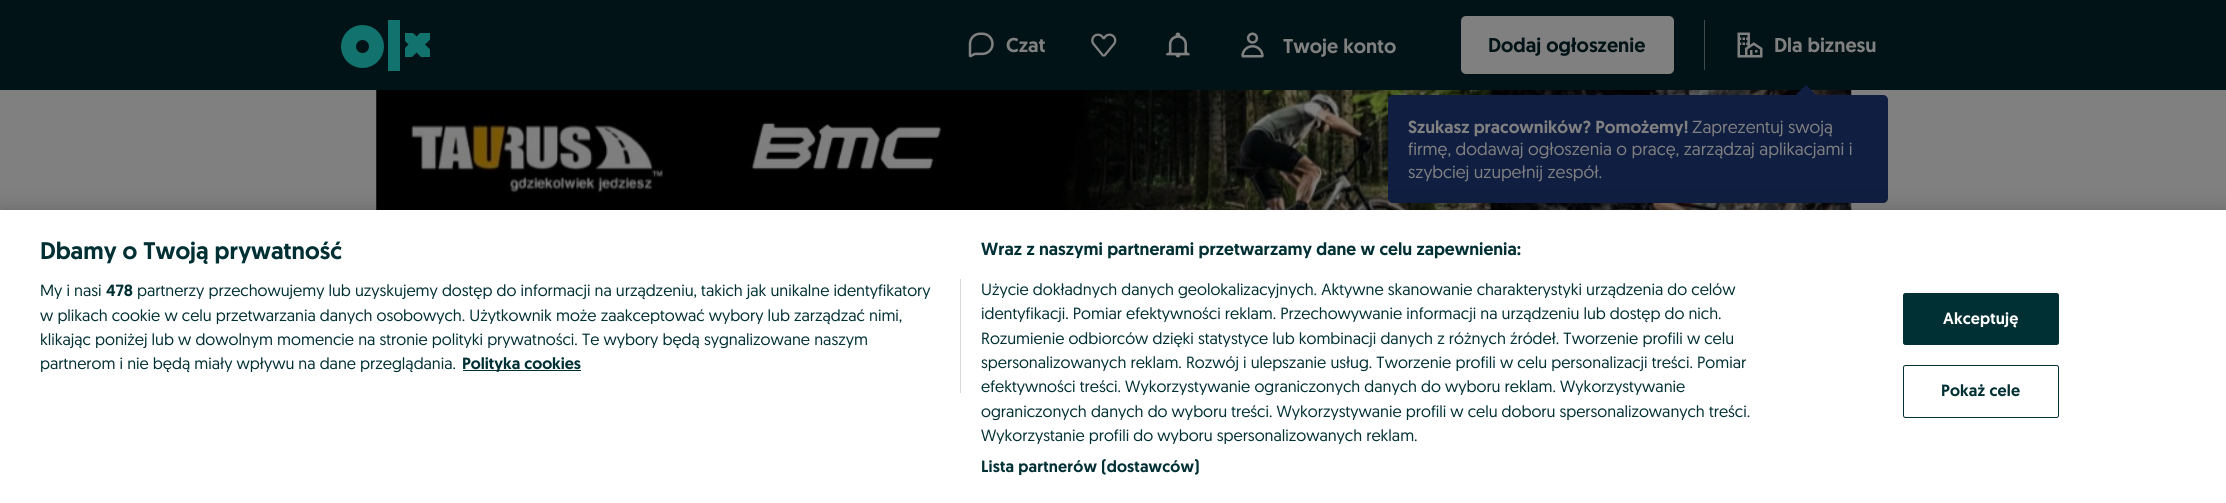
import math
import cairo

surface = cairo.ImageSurface(cairo.FORMAT_RGB24, 2226, 503)
ctx = cairo.Context(surface)
options = cairo.FontOptions()
options.set_hint_metrics(cairo.HINT_METRICS_OFF)
options.set_hint_style(cairo.HINT_STYLE_NONE)
ctx.set_font_options(options)
ctx.set_miter_limit(4)


def spaced_text(x, y, s, letter, word):
    ctx.move_to(x, y)
    for ch in s:
        ctx.show_text(ch)
        ctx.rel_move_to(letter + word * (ch == ' '), 0)


def round_rect(x, y, w, h, r):
    ctx.new_sub_path()
    for i, (u, v) in enumerate([(x + w - r, y + h - r), (x + r, y + h - r), (x + r, y + r), (x + w - r, y + r)]):
        ctx.arc(u, v, r, i * math.pi / 2, (i + 1) * math.pi / 2)
    ctx.close_path()


def shadow(x, y, w, h, r, blur, alpha):
    ctx.push_group_with_content(cairo.CONTENT_ALPHA)
    ctx.set_operator(cairo.OPERATOR_SOURCE)
    for i in range(15, -16, -2):
        e = blur * i / 6
        if min(w, h) + 2 * e > 0:
            ctx.set_source_rgba(0, 0, 0, alpha * math.erfc((i - 1) / 8.5) / 2)
            round_rect(x - e, y - e, w + 2 * e, h + 2 * e, max(0, min(r + e + blur * .6, min(w, h) / 2 + e)))
            ctx.fill()
    ctx.mask(ctx.pop_group())


def picture(path, x, y, w, h):
    ctx.save()
    ctx.set_source_surface(cairo.ImageSurface.create_from_png(path), x, y)
    ctx.rectangle(x, y, w, h)
    ctx.fill()
    ctx.restore()


ctx.set_source_rgb(0.502, 0.502, 0.502)
ctx.paint()
ctx.set_source_rgb(0.004, 0.078, 0.086)
ctx.rectangle(0, 0, 2226, 90)
ctx.fill()
ctx.arc(362.5, 46.5, 14, 0, 2 * math.pi)
ctx.set_source_rgb(0.071, 0.451, 0.431)
ctx.set_line_width(15)
ctx.stroke()
ctx.rectangle(388, 20, 12, 51)
ctx.fill()
ctx.save()
ctx.rectangle(405, 33, 25, 25)
ctx.clip()
ctx.new_path()
ctx.move_to(396, 32)
ctx.line_to(412, 32)
ctx.line_to(438, 57)
ctx.line_to(421, 57)
ctx.close_path()
ctx.fill()
ctx.new_path()
ctx.move_to(421, 32)
ctx.line_to(438, 32)
ctx.line_to(412, 57)
ctx.line_to(396, 57)
ctx.close_path()
ctx.fill()
ctx.restore()
picture("img1.png", 968, 32, 26, 26)
ctx.select_font_face("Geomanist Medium")
ctx.set_font_size(20)
ctx.set_source_rgb(0.502, 0.502, 0.502)
ctx.move_to(1006, 52)
ctx.show_text("Czat")
picture("img2.png", 1091, 33, 26, 24)
picture("img3.png", 1166, 32, 24, 26)
ctx.set_source_rgb(0.251, 0.298, 0.302)
ctx.rectangle(1704, 20, 1, 50)
ctx.fill()
picture("img4.png", 1737, 32, 26, 26)
ctx.set_source_rgb(0.502, 0.502, 0.502)
ctx.move_to(1774, 52)
ctx.show_text("Dla biznesu")
picture("img6.png", 376, 90, 1476, 120)
ctx.set_source_rgb(0.059, 0.118, 0.255)
round_rect(1388, 95, 500, 108, 5)
ctx.fill()
ctx.new_path()
ctx.move_to(1816, 95)
ctx.line_to(1796, 95)
ctx.line_to(1806, 85)
ctx.close_path()
ctx.fill()
ctx.set_font_size(17.5)
ctx.set_source_rgb(0.502, 0.502, 0.502)
ctx.move_to(1408, 133)
ctx.show_text("Szukasz pracowników? Pomożemy!")
ctx.select_font_face("Geomanist")
ctx.move_to(1692, 133)
ctx.show_text("Zaprezentuj swoją")
ctx.move_to(1408, 155)
ctx.show_text("firmę, dodawaj ogłoszenia o pracę, zarządzaj aplikacjami i")
ctx.move_to(1408, 178)
ctx.show_text("szybciej uzupełnij zespół.")
picture("img5.png", 1241, 32, 23, 26)
ctx.select_font_face("Geomanist Medium")
ctx.set_font_size(20)
ctx.move_to(1283, 53)
ctx.show_text("Twoje konto")
round_rect(1461, 16, 213, 58, 5)
ctx.fill()
ctx.set_source_rgb(0.004, 0.078, 0.086)
ctx.move_to(1488, 52)
ctx.show_text("Dodaj ogłoszenie")
ctx.set_source_rgb(0, 0, 0)
shadow(0, 210, 2226, 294, 0, 11, 0.2)
ctx.set_source_rgb(1, 1, 1)
ctx.rectangle(0, 210, 2226, 293)
ctx.fill()
ctx.set_font_size(24)
ctx.set_source_rgb(0, 0.184, 0.204)
ctx.move_to(40, 259)
ctx.show_text("Dbamy o Twoją prywatność")
ctx.set_font_size(17.6)
ctx.move_to(981, 255)
ctx.show_text("Wraz z naszymi partnerami przetwarzamy dane w celu zapewnienia:")
ctx.select_font_face("Geomanist")
ctx.set_font_size(16.25)
ctx.move_to(981, 295)
ctx.show_text("Użycie dokładnych danych geolokalizacyjnych. Aktywne skanowanie charakterystyki urządzenia do celów")
ctx.move_to(981, 319)
ctx.show_text("identyfikacji. Pomiar efektywności reklam. Przechowywanie informacji na urządzeniu lub dostęp do nich.")
ctx.move_to(981, 344)
ctx.show_text("Rozumienie odbiorców dzięki statystyce lub kombinacji danych z różnych źródeł. Tworzenie profili w celu")
ctx.move_to(981, 368)
ctx.show_text("spersonalizowanych reklam. Rozwój i ulepszanie usług. Tworzenie profili w celu personalizacji treści. Pomiar")
ctx.move_to(981, 392)
ctx.show_text("efektywności treści. Wykorzystywanie ograniczonych danych do wyboru reklam. Wykorzystywanie")
ctx.move_to(981, 417)
ctx.show_text("ograniczonych danych do wyboru treści. Wykorzystywanie profili w celu doboru spersonalizowanych treści.")
ctx.move_to(981, 441)
ctx.show_text("Wykorzystanie profili do wyboru spersonalizowanych reklam.")
ctx.select_font_face("Geomanist Medium")
spaced_text(981, 472, "Lista partnerów (dostawców)", 0.15, 0)
ctx.set_source_rgb(0.847, 0.847, 0.847)
ctx.rectangle(960, 279, 1, 114)
ctx.fill()
ctx.select_font_face("Geomanist")
ctx.set_source_rgb(0, 0.184, 0.204)
ctx.move_to(40, 296)
ctx.show_text("My i nasi")
ctx.select_font_face("Geomanist Medium")
ctx.move_to(106, 296)
ctx.show_text("478")
ctx.select_font_face("Geomanist")
ctx.move_to(137, 296)
ctx.show_text("partnerzy przechowujemy lub uzyskujemy dostęp do informacji na urządzeniu, takich jak unikalne identyfikatory")
ctx.move_to(40, 321)
ctx.show_text("w plikach cookie w celu przetwarzania danych osobowych. Użytkownik może zaakceptować wybory lub zarządzać nimi,")
ctx.move_to(40, 345)
ctx.show_text("klikając poniżej lub w dowolnym momencie na stronie polityki prywatności. Te wybory będą sygnalizowane naszym")
ctx.move_to(40, 369)
ctx.show_text("partnerom i nie będą miały wpływu na dane przeglądania.")
ctx.rectangle(463, 370, 118, 1)
ctx.fill()
ctx.select_font_face("Geomanist Medium")
ctx.move_to(462, 369)
ctx.show_text("Polityka cookies")
round_rect(1903.5, 293.5, 155, 51, 2)
ctx.fill_preserve()
ctx.set_line_width(1)
ctx.stroke()
ctx.set_source_rgb(1, 1, 1)
spaced_text(1943, 324, "Akceptuję", 0.15, 0)
round_rect(1903.5, 365.5, 155, 52, 2)
ctx.set_source_rgb(0, 0.184, 0.204)
ctx.stroke()
spaced_text(1941, 396, "Pokaż cele", 0.15, 0)
surface.write_to_png("page.png")
